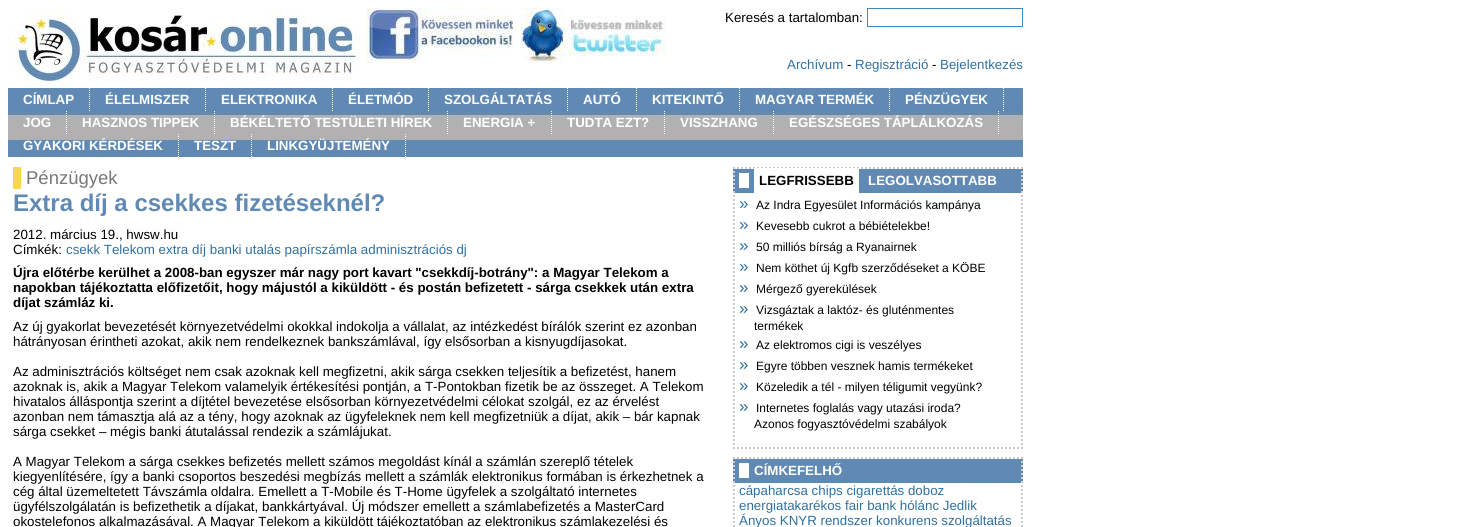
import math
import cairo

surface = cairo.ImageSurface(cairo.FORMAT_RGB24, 1468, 527)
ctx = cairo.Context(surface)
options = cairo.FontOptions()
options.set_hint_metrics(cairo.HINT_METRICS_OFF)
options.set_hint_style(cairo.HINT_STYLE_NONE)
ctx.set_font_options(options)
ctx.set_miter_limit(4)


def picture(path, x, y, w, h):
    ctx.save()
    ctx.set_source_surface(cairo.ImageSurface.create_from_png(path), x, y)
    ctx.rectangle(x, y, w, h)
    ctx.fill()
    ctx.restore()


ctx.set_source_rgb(1, 1, 1)
ctx.paint()
picture("img1.png", 8, 8, 352, 80)
picture("img2.png", 366, 8, 147, 55)
picture("img3.png", 521, 8, 144, 55)
ctx.select_font_face("Liberation Sans")
ctx.set_font_size(13.33)
ctx.set_source_rgb(0, 0, 0)
ctx.move_to(725, 22)
ctx.show_text("Keresés a tartalomban:")
ctx.rectangle(867.5, 8.5, 155, 18)
ctx.set_source_rgb(0.251, 0.533, 0.757)
ctx.set_line_width(1)
ctx.stroke()
ctx.set_source_rgb(0.188, 0.439, 0.631)
ctx.move_to(787, 69)
ctx.show_text("Archívum")
ctx.set_source_rgb(0, 0, 0)
ctx.move_to(847, 69)
ctx.show_text("-")
ctx.set_source_rgb(0.188, 0.439, 0.631)
ctx.move_to(855, 69)
ctx.show_text("Regisztráció")
ctx.set_source_rgb(0, 0, 0)
ctx.move_to(932, 69)
ctx.show_text("-")
ctx.set_source_rgb(0.188, 0.439, 0.631)
ctx.move_to(940, 69)
ctx.show_text("Bejelentkezés")
picture("img4.png", 8, 88, 1015, 69)
ctx.new_path()
ctx.move_to(89.5, 88)
ctx.line_to(89.5, 111)
ctx.set_source_rgb(1, 1, 1)
ctx.set_dash([1, 1])
ctx.stroke()
ctx.select_font_face("Liberation Sans", cairo.FONT_SLANT_NORMAL, cairo.FONT_WEIGHT_BOLD)
ctx.move_to(23, 104)
ctx.show_text("CÍMLAP")
ctx.new_path()
ctx.move_to(205.5, 88)
ctx.line_to(205.5, 111)
ctx.stroke()
ctx.move_to(105, 104)
ctx.show_text("ÉLELMISZER")
ctx.new_path()
ctx.move_to(332.5, 88)
ctx.line_to(332.5, 111)
ctx.stroke()
ctx.move_to(221, 104)
ctx.show_text("ELEKTRONIKA")
ctx.new_path()
ctx.move_to(428.5, 88)
ctx.line_to(428.5, 111)
ctx.stroke()
ctx.move_to(348, 104)
ctx.show_text("ÉLETMÓD")
ctx.new_path()
ctx.move_to(567.5, 88)
ctx.line_to(567.5, 111)
ctx.stroke()
ctx.move_to(444, 104)
ctx.show_text("SZOLGÁLTATÁS")
ctx.new_path()
ctx.move_to(636.5, 88)
ctx.line_to(636.5, 111)
ctx.stroke()
ctx.move_to(583, 104)
ctx.show_text("AUTÓ")
ctx.new_path()
ctx.move_to(739.5, 88)
ctx.line_to(739.5, 111)
ctx.stroke()
ctx.move_to(652, 104)
ctx.show_text("KITEKINTŐ")
ctx.new_path()
ctx.move_to(889.5, 88)
ctx.line_to(889.5, 111)
ctx.stroke()
ctx.move_to(755, 104)
ctx.show_text("MAGYAR TERMÉK")
ctx.new_path()
ctx.move_to(1003.5, 88)
ctx.line_to(1003.5, 111)
ctx.stroke()
ctx.move_to(905, 104)
ctx.show_text("PÉNZÜGYEK")
ctx.new_path()
ctx.move_to(66.5, 111)
ctx.line_to(66.5, 134)
ctx.stroke()
ctx.move_to(23, 127)
ctx.show_text("JOG")
ctx.new_path()
ctx.move_to(214.5, 111)
ctx.line_to(214.5, 134)
ctx.stroke()
ctx.move_to(82, 127)
ctx.show_text("HASZNOS TIPPEK")
ctx.new_path()
ctx.move_to(447.5, 111)
ctx.line_to(447.5, 134)
ctx.stroke()
ctx.move_to(230, 127)
ctx.show_text("BÉKÉLTETŐ TESTÜLETI HÍREK")
ctx.new_path()
ctx.move_to(551.5, 111)
ctx.line_to(551.5, 134)
ctx.stroke()
ctx.move_to(463, 127)
ctx.show_text("ENERGIA +")
ctx.new_path()
ctx.move_to(664.5, 111)
ctx.line_to(664.5, 134)
ctx.stroke()
ctx.move_to(567, 127)
ctx.show_text("TUDTA EZT?")
ctx.new_path()
ctx.move_to(773.5, 111)
ctx.line_to(773.5, 134)
ctx.stroke()
ctx.move_to(680, 127)
ctx.show_text("VISSZHANG")
ctx.new_path()
ctx.move_to(998.5, 111)
ctx.line_to(998.5, 134)
ctx.stroke()
ctx.move_to(789, 127)
ctx.show_text("EGÉSZSÉGES TÁPLÁLKOZÁS")
ctx.new_path()
ctx.move_to(178.5, 134)
ctx.line_to(178.5, 157)
ctx.stroke()
ctx.move_to(23, 150)
ctx.show_text("GYAKORI KÉRDÉSEK")
ctx.new_path()
ctx.move_to(251.5, 134)
ctx.line_to(251.5, 157)
ctx.stroke()
ctx.move_to(194, 150)
ctx.show_text("TESZT")
ctx.new_path()
ctx.move_to(405.5, 134)
ctx.line_to(405.5, 157)
ctx.stroke()
ctx.move_to(267, 150)
ctx.show_text("LINKGYÜJTEMÉNY")
ctx.set_source_rgb(0.969, 0.839, 0.318)
ctx.rectangle(13, 167, 8, 22)
ctx.fill()
ctx.select_font_face("Liberation Sans")
ctx.set_font_size(18.5)
ctx.set_source_rgb(0.467, 0.467, 0.467)
ctx.move_to(26, 184)
ctx.show_text("Pénzügyek")
ctx.select_font_face("Liberation Sans", cairo.FONT_SLANT_NORMAL, cairo.FONT_WEIGHT_BOLD)
ctx.set_font_size(24)
ctx.set_source_rgb(0.376, 0.541, 0.706)
ctx.move_to(13, 211)
ctx.show_text("Extra díj a csekkes fizetéseknél?")
ctx.select_font_face("Liberation Sans")
ctx.set_font_size(13.33)
ctx.set_source_rgb(0, 0, 0)
ctx.move_to(13, 239)
ctx.show_text("2012. március 19., hwsw.hu")
ctx.move_to(13, 254)
ctx.show_text("Címkék:")
ctx.set_source_rgb(0.188, 0.439, 0.631)
ctx.move_to(66, 254)
ctx.show_text("csekk Telekom extra díj banki utalás papírszámla adminisztrációs dj")
ctx.select_font_face("Liberation Sans", cairo.FONT_SLANT_NORMAL, cairo.FONT_WEIGHT_BOLD)
ctx.set_source_rgb(0, 0, 0)
ctx.move_to(13, 277)
ctx.show_text("Újra előtérbe kerülhet a 2008-ban egyszer már nagy port kavart \"csekkdíj-botrány\": a Magyar Telekom a")
ctx.move_to(13, 292)
ctx.show_text("napokban tájékoztatta előfizetőit, hogy májustól a kiküldött - és postán befizetett - sárga csekkek után extra")
ctx.move_to(13, 307)
ctx.show_text("díjat számláz ki.")
ctx.select_font_face("Liberation Sans")
ctx.move_to(13, 331)
ctx.show_text("Az új gyakorlat bevezetését környezetvédelmi okokkal indokolja a vállalat, az intézkedést bírálók szerint ez azonban")
ctx.move_to(13, 346)
ctx.show_text("hátrányosan érintheti azokat, akik nem rendelkeznek bankszámlával, így elsősorban a kisnyugdíjasokat.")
ctx.move_to(13, 376)
ctx.show_text("Az adminisztrációs költséget nem csak azoknak kell megfizetni, akik sárga csekken teljesítik a befizetést, hanem")
ctx.move_to(13, 391)
ctx.show_text("azoknak is, akik a Magyar Telekom valamelyik értékesítési pontján, a T-Pontokban fizetik be az összeget. A Telekom")
ctx.move_to(13, 406)
ctx.show_text("hivatalos álláspontja szerint a díjtétel bevezetése elsősorban környezetvédelmi célokat szolgál, ez az érvelést")
ctx.move_to(13, 421)
ctx.show_text("azonban nem támasztja alá az a tény, hogy azoknak az ügyfeleknek nem kell megfizetniük a díjat, akik – bár kapnak")
ctx.move_to(13, 436)
ctx.show_text("sárga csekket – mégis banki átutalással rendezik a számlájukat.")
ctx.move_to(13, 466)
ctx.show_text("A Magyar Telekom a sárga csekkes befizetés mellett számos megoldást kínál a számlán szereplő tételek")
ctx.move_to(13, 481)
ctx.show_text("kiegyenlítésére, így a banki csoportos beszedési megbízás mellett a számlák elektronikus formában is érkezhetnek a")
ctx.move_to(13, 496)
ctx.show_text("cég által üzemeltetett Távszámla oldalra. Emellett a T-Mobile és T-Home ügyfelek a szolgáltató internetes")
ctx.move_to(13, 511)
ctx.show_text("ügyfélszolgálatán is befizethetik a díjakat, bankkártyával. Új módszer emellett a számlabefizetés a MasterCard")
ctx.move_to(13, 526)
ctx.show_text("okostelefonos alkalmazásával. A Magyar Telekom a kiküldött tájékoztatóban az elektronikus számlakezelési és")
picture("img5.png", 733, 169, 290, 24)
ctx.new_path()
ctx.move_to(733, 168)
ctx.line_to(1023, 168)
ctx.set_source_rgb(0.8, 0.8, 0.8)
ctx.set_line_width(2)
ctx.set_dash([2, 2])
ctx.stroke()
ctx.new_path()
ctx.move_to(1022, 167)
ctx.line_to(1022, 449)
ctx.stroke()
ctx.new_path()
ctx.move_to(733, 448)
ctx.line_to(1023, 448)
ctx.stroke()
ctx.new_path()
ctx.move_to(734, 167)
ctx.line_to(734, 449)
ctx.stroke()
ctx.set_source_rgb(1, 1, 1)
ctx.rectangle(739, 173, 10, 15)
ctx.fill()
ctx.rectangle(754, 168, 105, 25)
ctx.fill()
ctx.select_font_face("Liberation Sans", cairo.FONT_SLANT_NORMAL, cairo.FONT_WEIGHT_BOLD)
ctx.set_source_rgb(0, 0, 0)
ctx.move_to(759, 185)
ctx.show_text("LEGFRISSEBB")
ctx.set_source_rgb(1, 1, 1)
ctx.move_to(868, 185)
ctx.show_text("LEGOLVASOTTABB")
ctx.select_font_face("Liberation Sans")
ctx.set_font_size(17)
ctx.set_source_rgb(0.188, 0.439, 0.631)
ctx.move_to(739, 209)
ctx.show_text("»")
ctx.set_font_size(12)
ctx.set_source_rgb(0, 0, 0)
ctx.move_to(756, 209)
ctx.show_text("Az Indra Egyesület Információs kampánya")
ctx.set_font_size(17)
ctx.set_source_rgb(0.188, 0.439, 0.631)
ctx.move_to(739, 230)
ctx.show_text("»")
ctx.set_font_size(12)
ctx.set_source_rgb(0, 0, 0)
ctx.move_to(756, 230)
ctx.show_text("Kevesebb cukrot a bébiételekbe!")
ctx.set_font_size(17)
ctx.set_source_rgb(0.188, 0.439, 0.631)
ctx.move_to(739, 251)
ctx.show_text("»")
ctx.set_font_size(12)
ctx.set_source_rgb(0, 0, 0)
ctx.move_to(756, 251)
ctx.show_text("50 milliós bírság a Ryanairnek")
ctx.set_font_size(17)
ctx.set_source_rgb(0.188, 0.439, 0.631)
ctx.move_to(739, 272)
ctx.show_text("»")
ctx.set_font_size(12)
ctx.set_source_rgb(0, 0, 0)
ctx.move_to(756, 272)
ctx.show_text("Nem köthet új Kgfb szerződéseket a KÖBE")
ctx.set_font_size(17)
ctx.set_source_rgb(0.188, 0.439, 0.631)
ctx.move_to(739, 293)
ctx.show_text("»")
ctx.set_font_size(12)
ctx.set_source_rgb(0, 0, 0)
ctx.move_to(756, 293)
ctx.show_text("Mérgező gyerekülések")
ctx.set_font_size(17)
ctx.set_source_rgb(0.188, 0.439, 0.631)
ctx.move_to(739, 314)
ctx.show_text("»")
ctx.set_font_size(12)
ctx.set_source_rgb(0, 0, 0)
ctx.move_to(756, 314)
ctx.show_text("Vizsgáztak a laktóz- és gluténmentes")
ctx.move_to(754, 330)
ctx.show_text("termékek")
ctx.set_font_size(17)
ctx.set_source_rgb(0.188, 0.439, 0.631)
ctx.move_to(739, 349)
ctx.show_text("»")
ctx.set_font_size(12)
ctx.set_source_rgb(0, 0, 0)
ctx.move_to(756, 349)
ctx.show_text("Az elektromos cigi is veszélyes")
ctx.set_font_size(17)
ctx.set_source_rgb(0.188, 0.439, 0.631)
ctx.move_to(739, 370)
ctx.show_text("»")
ctx.set_font_size(12)
ctx.set_source_rgb(0, 0, 0)
ctx.move_to(756, 370)
ctx.show_text("Egyre többen vesznek hamis termékeket")
ctx.set_font_size(17)
ctx.set_source_rgb(0.188, 0.439, 0.631)
ctx.move_to(739, 391)
ctx.show_text("»")
ctx.set_font_size(12)
ctx.set_source_rgb(0, 0, 0)
ctx.move_to(756, 391)
ctx.show_text("Közeledik a tél - milyen téligumit vegyünk?")
ctx.set_font_size(17)
ctx.set_source_rgb(0.188, 0.439, 0.631)
ctx.move_to(739, 412)
ctx.show_text("»")
ctx.set_font_size(12)
ctx.set_source_rgb(0, 0, 0)
ctx.move_to(756, 412)
ctx.show_text("Internetes foglalás vagy utazási iroda?")
ctx.move_to(754, 428)
ctx.show_text("Azonos fogyasztóvédelmi szabályok")
picture("img5.png", 733, 459, 290, 24)
ctx.new_path()
ctx.move_to(733, 458)
ctx.line_to(1023, 458)
ctx.set_source_rgb(0.8, 0.8, 0.8)
ctx.stroke()
ctx.new_path()
ctx.move_to(1022, 457)
ctx.line_to(1022, 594)
ctx.stroke()
ctx.new_path()
ctx.move_to(734, 457)
ctx.line_to(734, 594)
ctx.stroke()
ctx.set_source_rgb(1, 1, 1)
ctx.rectangle(739, 463, 10, 15)
ctx.fill()
ctx.select_font_face("Liberation Sans", cairo.FONT_SLANT_NORMAL, cairo.FONT_WEIGHT_BOLD)
ctx.set_font_size(13.33)
ctx.move_to(754, 475)
ctx.show_text("CÍMKEFELHŐ")
ctx.select_font_face("Liberation Sans")
ctx.set_source_rgb(0.188, 0.439, 0.631)
ctx.move_to(739, 495)
ctx.show_text("cápaharcsa chips cigarettás doboz")
ctx.move_to(739, 510)
ctx.show_text("energiatakarékos fair bank hólánc Jedlik")
ctx.move_to(739, 525)
ctx.show_text("Ányos KNYR rendszer konkurens szolgáltatás")
surface.write_to_png("page.png")
